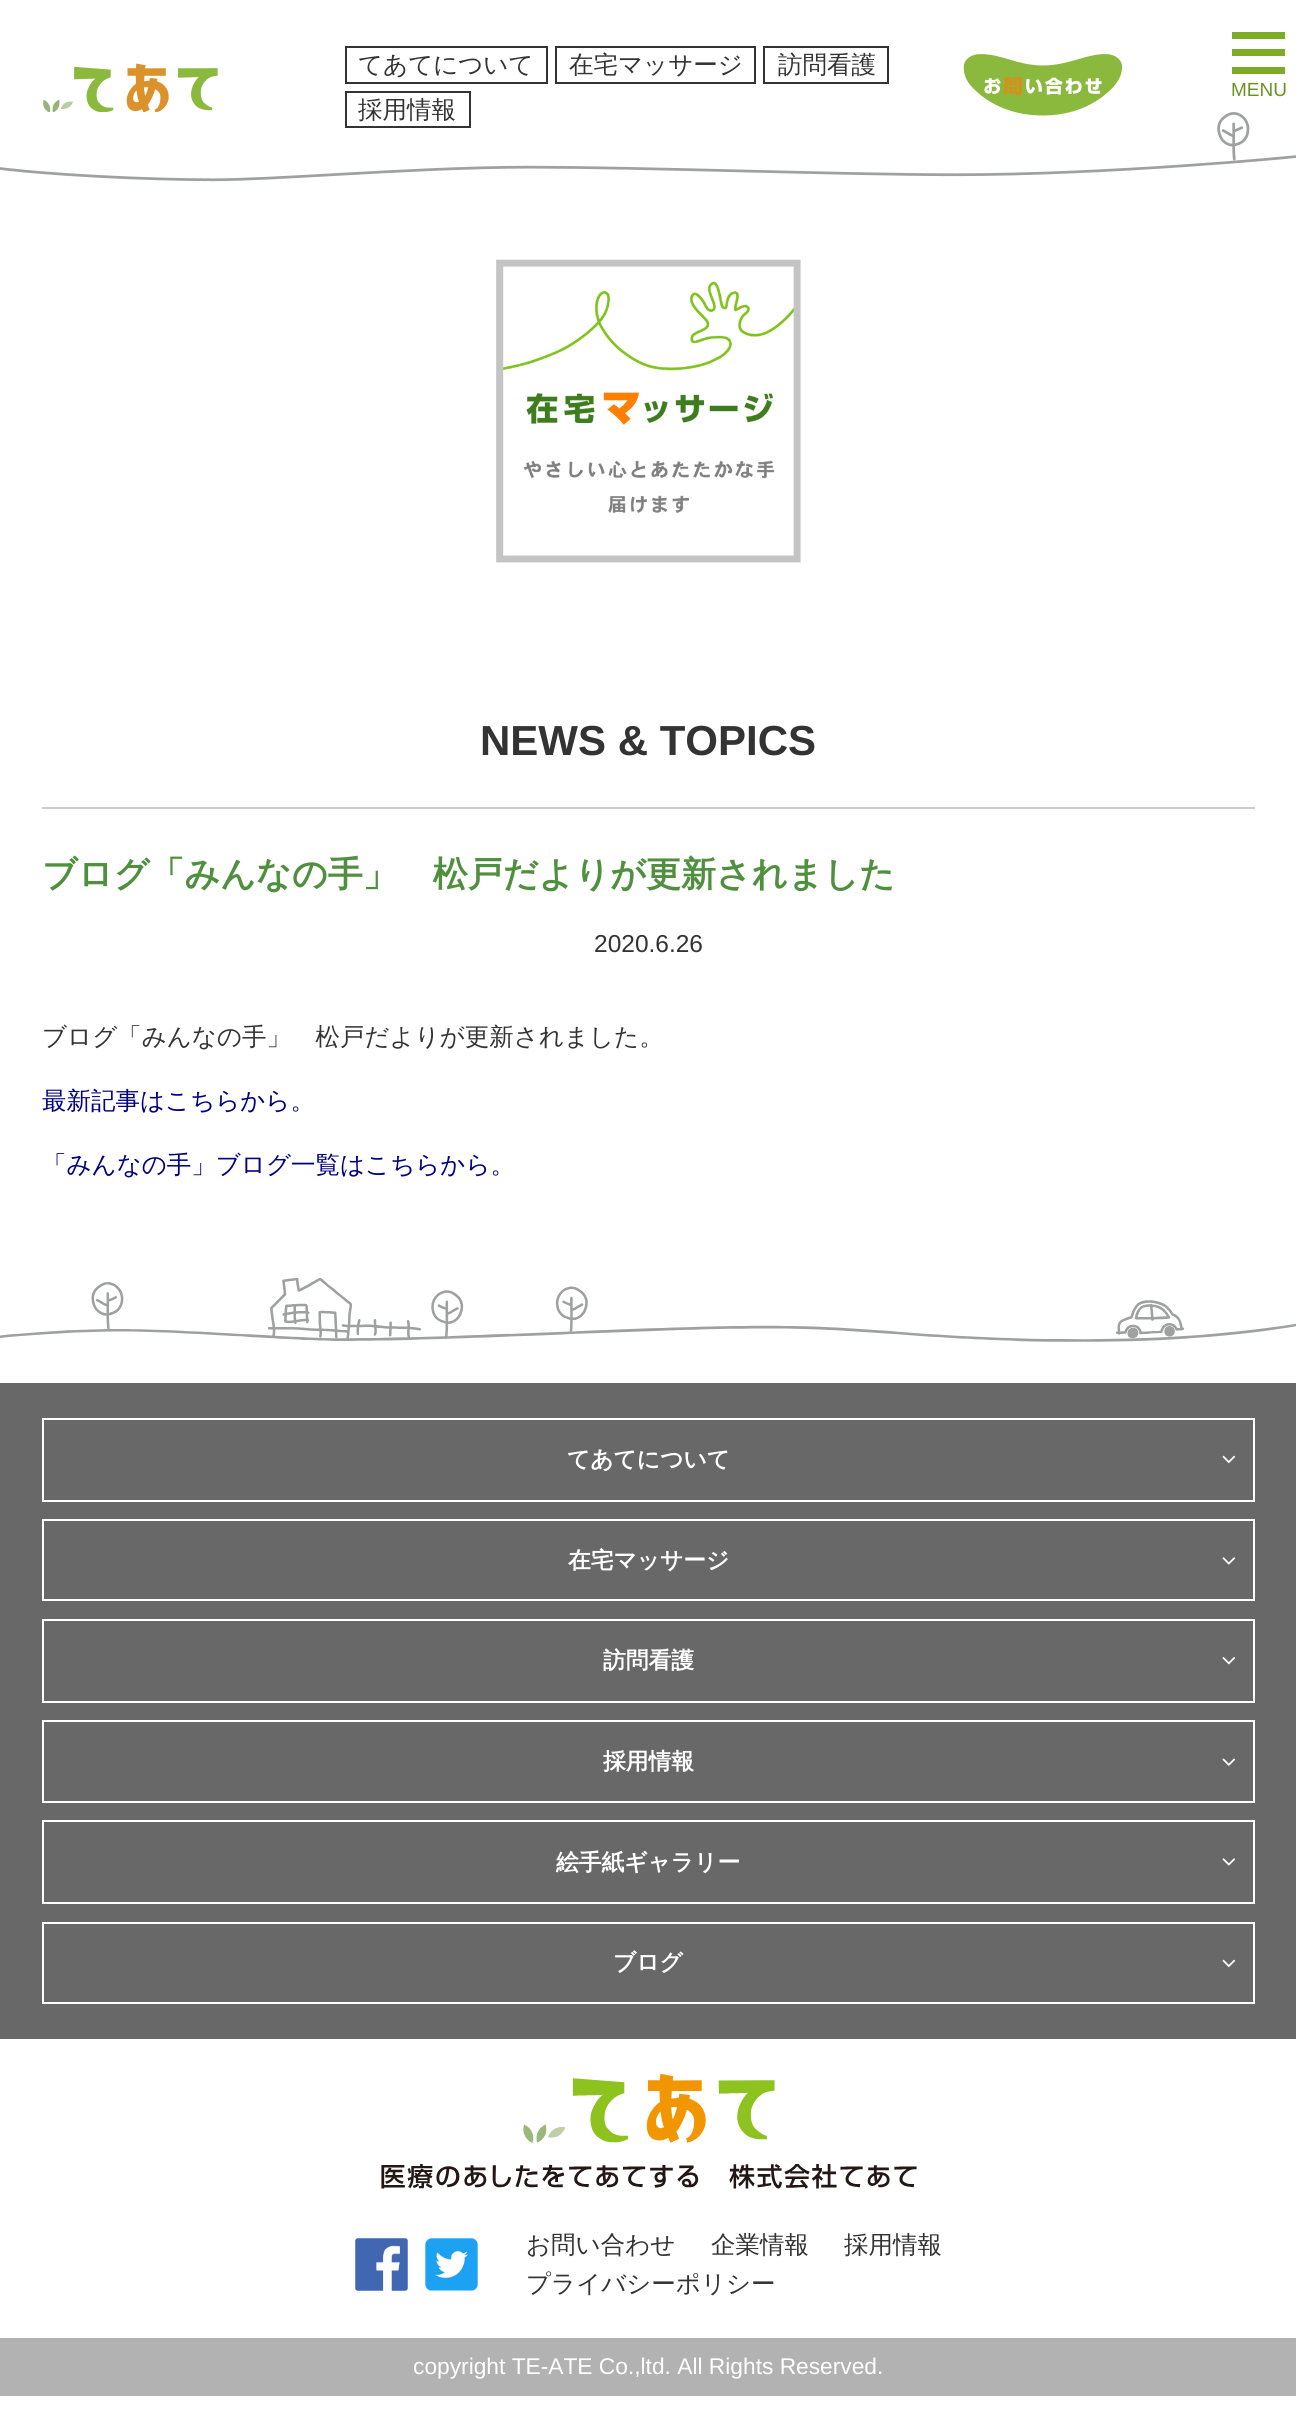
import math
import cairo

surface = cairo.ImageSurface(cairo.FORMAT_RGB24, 1296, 2428)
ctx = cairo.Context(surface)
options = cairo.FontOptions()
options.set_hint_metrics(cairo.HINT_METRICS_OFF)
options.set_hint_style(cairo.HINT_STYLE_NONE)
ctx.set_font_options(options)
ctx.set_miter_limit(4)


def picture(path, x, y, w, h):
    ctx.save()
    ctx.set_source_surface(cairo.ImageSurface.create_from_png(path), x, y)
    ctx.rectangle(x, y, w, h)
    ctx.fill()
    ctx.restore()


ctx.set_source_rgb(1, 1, 1)
ctx.paint()
picture("img1.png", 0, 112, 1296, 70)
picture("img2.png", 43, 63, 175, 49)
ctx.rectangle(346, 47, 201, 36)
ctx.set_source_rgb(0.2, 0.2, 0.2)
ctx.stroke()
ctx.select_font_face("WenQuanYi Zen Hei Medium")
ctx.set_font_size(24.5)
ctx.move_to(358, 73)
ctx.show_text("てあてについて")
ctx.rectangle(556, 47, 199, 36)
ctx.stroke()
ctx.move_to(569, 73)
ctx.show_text("在宅マッサージ")
ctx.rectangle(764, 47, 124, 36)
ctx.stroke()
ctx.move_to(778, 73)
ctx.show_text("訪問看護")
ctx.rectangle(346, 92, 124, 35)
ctx.stroke()
ctx.move_to(358, 118)
ctx.show_text("採用情報")
picture("img3.png", 963, 54, 160, 62)
picture("img4.png", 496, 259, 305, 304)
ctx.select_font_face("Liberation Sans", cairo.FONT_SLANT_NORMAL, cairo.FONT_WEIGHT_BOLD)
ctx.set_font_size(42)
ctx.move_to(480, 755)
ctx.show_text("NEWS & TOPICS")
ctx.set_source_rgb(0.8, 0.8, 0.8)
ctx.rectangle(42, 807, 1213, 2)
ctx.fill()
ctx.select_font_face("WenQuanYi Zen Hei", cairo.FONT_SLANT_NORMAL, cairo.FONT_WEIGHT_BOLD)
ctx.set_font_size(35)
ctx.set_source_rgb(0.31, 0.565, 0.243)
ctx.move_to(42, 886)
ctx.show_text("ブログ「みんなの手」　松戸だよりが更新されました")
ctx.select_font_face("Liberation Sans")
ctx.set_font_size(24.5)
ctx.set_source_rgb(0.2, 0.2, 0.2)
ctx.move_to(594, 952)
ctx.show_text("2020.6.26")
ctx.select_font_face("WenQuanYi Zen Hei Medium")
ctx.move_to(42, 1045)
ctx.show_text("ブログ「みんなの手」　松戸だよりが更新されました。")
ctx.set_source_rgb(0, 0, 0.502)
ctx.move_to(42, 1109)
ctx.show_text("最新記事はこちらから。")
ctx.move_to(42, 1173)
ctx.show_text("「みんなの手」ブログ一覧はこちらから。")
picture("img5.png", 0, 1278, 1296, 64)
ctx.set_source_rgb(0.408, 0.408, 0.408)
ctx.rectangle(0, 1383, 1296, 656)
ctx.fill()
ctx.rectangle(43, 1419, 1211, 82)
ctx.set_source_rgb(1, 1, 1)
ctx.stroke()
ctx.select_font_face("WenQuanYi Zen Hei", cairo.FONT_SLANT_NORMAL, cairo.FONT_WEIGHT_BOLD)
ctx.set_font_size(22.75)
ctx.move_to(567, 1467)
ctx.show_text("てあてについて")
picture("img6.png", 1222, 1455, 14, 9)
ctx.rectangle(43, 1520, 1211, 80)
ctx.stroke()
ctx.move_to(568, 1568)
ctx.show_text("在宅マッサージ")
picture("img7.png", 1222, 1557, 14, 8)
ctx.rectangle(43, 1620, 1211, 82)
ctx.stroke()
ctx.move_to(603, 1668)
ctx.show_text("訪問看護")
picture("img8.png", 1222, 1657, 14, 8)
ctx.rectangle(43, 1721, 1211, 81)
ctx.stroke()
ctx.move_to(603, 1769)
ctx.show_text("採用情報")
picture("img9.png", 1222, 1758, 14, 8)
ctx.rectangle(43, 1821, 1211, 82)
ctx.stroke()
ctx.move_to(556, 1870)
ctx.show_text("絵手紙ギャラリー")
picture("img7.png", 1222, 1858, 14, 8)
ctx.rectangle(43, 1923, 1211, 80)
ctx.stroke()
ctx.move_to(613, 1970)
ctx.show_text("ブログ")
picture("img6.png", 1222, 1959, 14, 9)
picture("img10.png", 381, 2074, 536, 115)
picture("img11.png", 355, 2238, 53, 53)
picture("img12.png", 425, 2238, 53, 53)
ctx.select_font_face("WenQuanYi Zen Hei Medium")
ctx.set_font_size(24.5)
ctx.set_source_rgb(0.2, 0.2, 0.2)
ctx.move_to(526, 2253)
ctx.show_text("お問い合わせ")
ctx.move_to(711, 2253)
ctx.show_text("企業情報")
ctx.move_to(844, 2253)
ctx.show_text("採用情報")
ctx.move_to(526, 2292)
ctx.show_text("プライバシーポリシー")
ctx.set_source_rgb(0.698, 0.698, 0.698)
ctx.rectangle(0, 2338, 1296, 58)
ctx.fill()
ctx.select_font_face("Liberation Sans")
ctx.set_font_size(22.75)
ctx.set_source_rgb(1, 1, 1)
ctx.move_to(413, 2374)
ctx.show_text("copyright TE-ATE Co.,ltd. All Rights Reserved.")
ctx.set_source_rgb(0.49, 0.678, 0.149)
ctx.rectangle(1232, 49, 53, 7)
ctx.fill()
ctx.rectangle(1232, 32, 53, 7)
ctx.fill()
ctx.rectangle(1232, 67, 53, 7)
ctx.fill()
ctx.set_font_size(19)
ctx.set_source_rgb(0.416, 0.576, 0.125)
ctx.move_to(1231, 96)
ctx.show_text("MENU")
surface.write_to_png("page.png")
